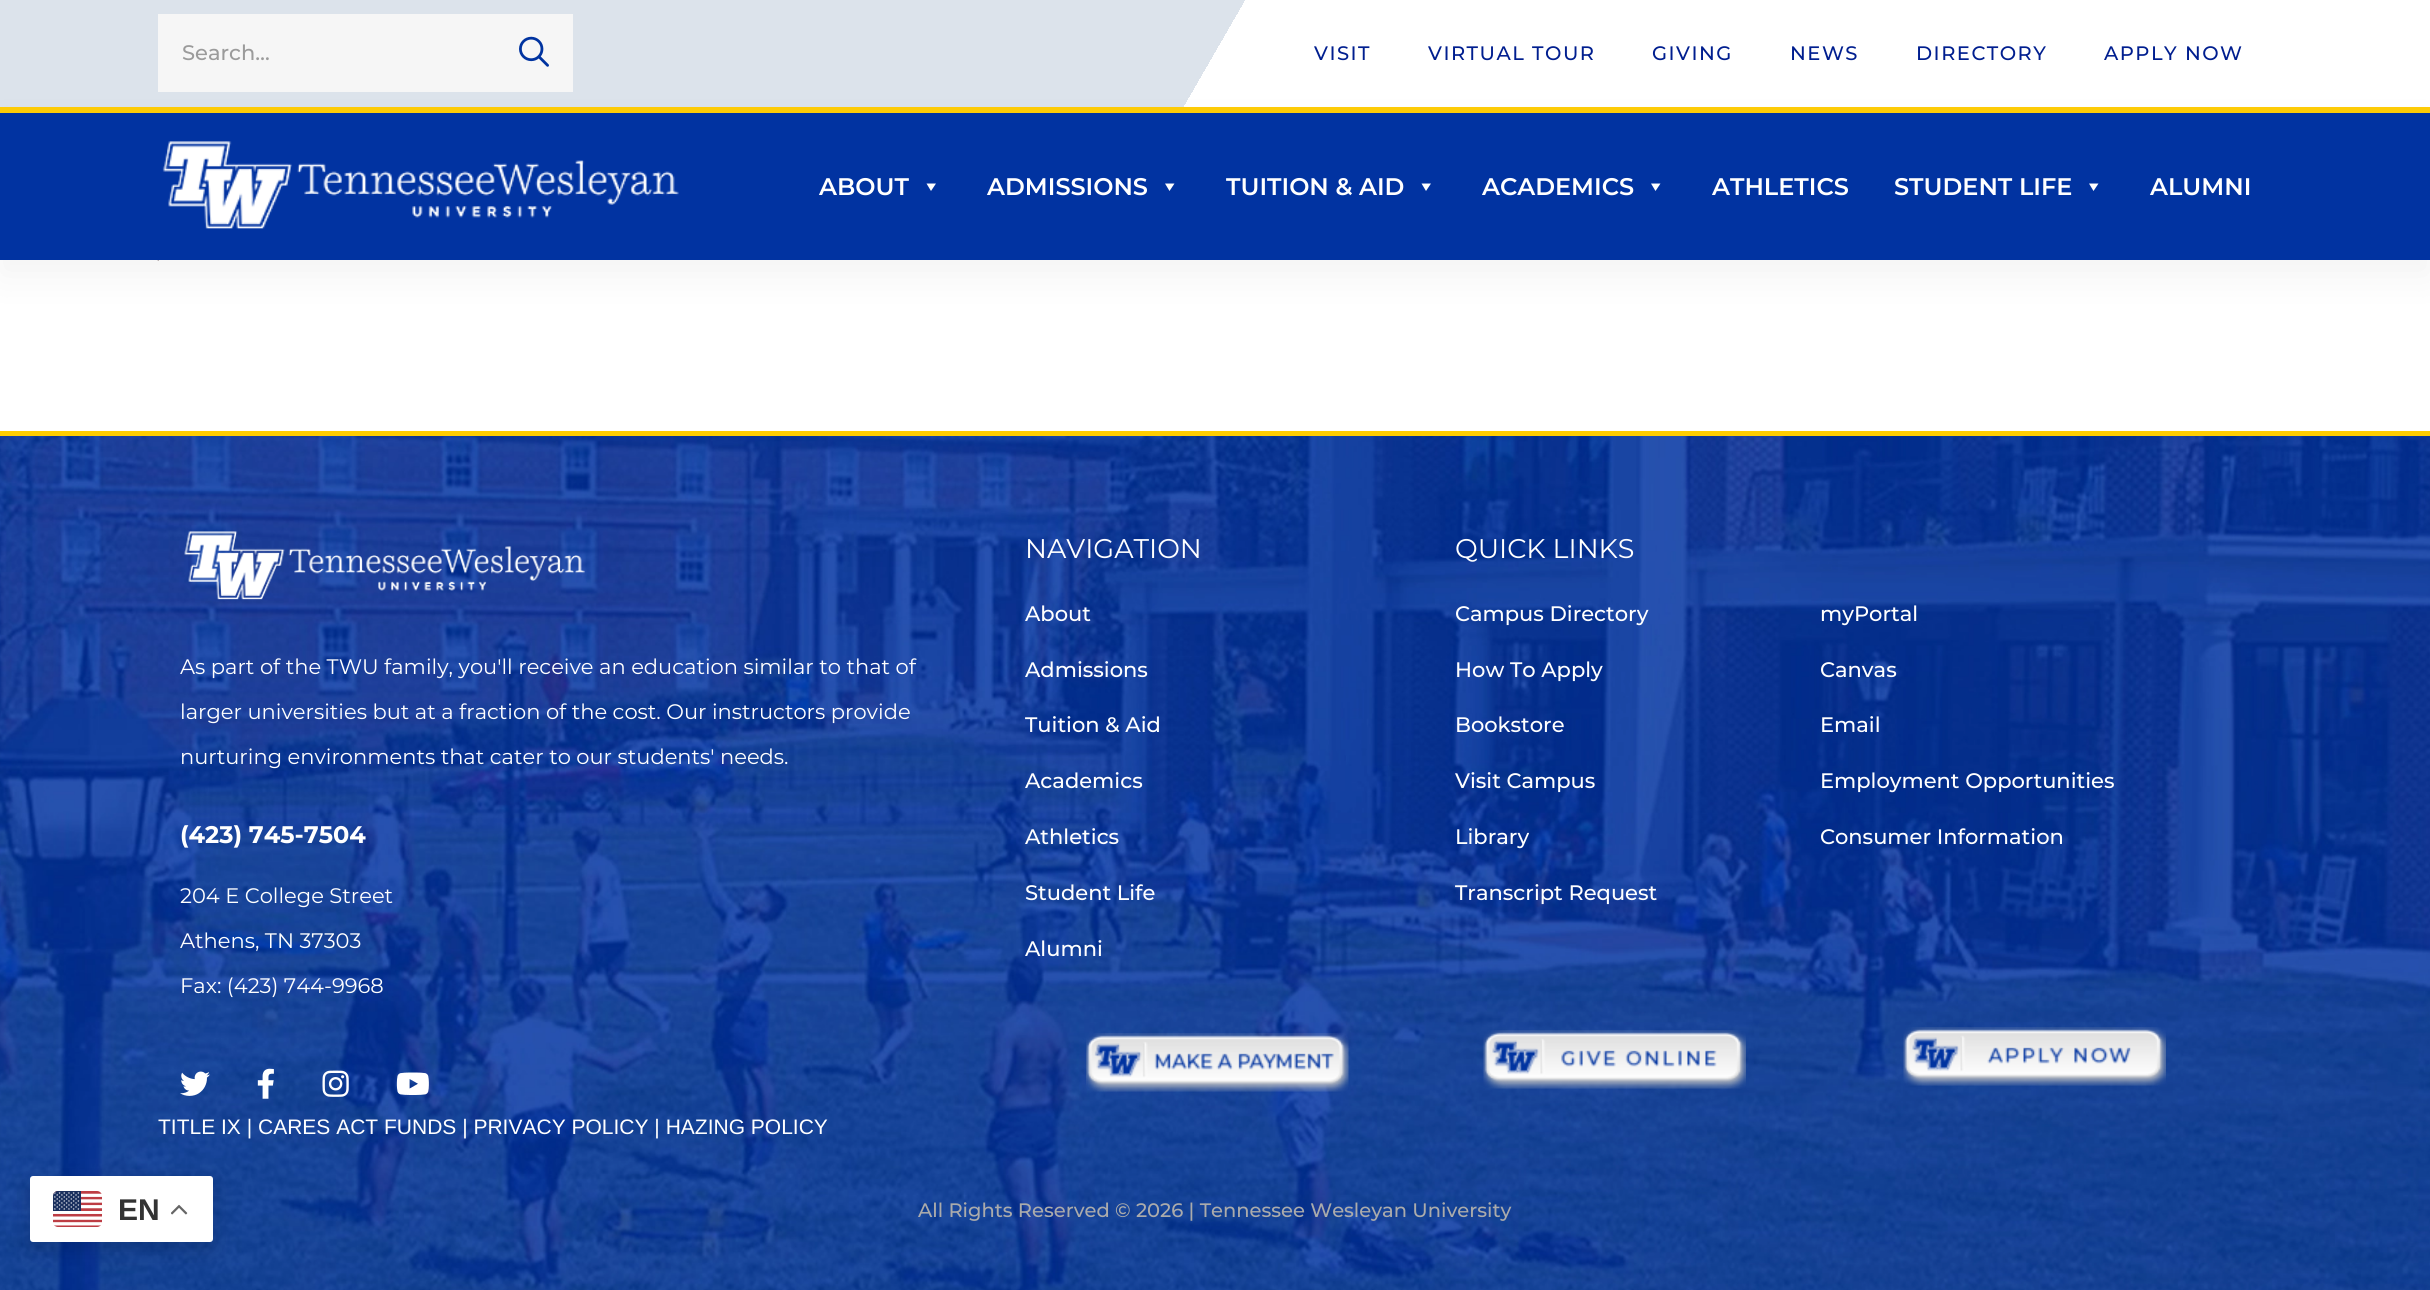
import math
import cairo

surface = cairo.ImageSurface(cairo.FORMAT_RGB24, 2430, 1290)
ctx = cairo.Context(surface)
options = cairo.FontOptions()
options.set_hint_metrics(cairo.HINT_METRICS_OFF)
options.set_hint_style(cairo.HINT_STYLE_NONE)
ctx.set_font_options(options)
ctx.set_miter_limit(4)


def spaced_text(x, y, s, letter, word):
    ctx.move_to(x, y)
    for ch in s:
        ctx.show_text(ch)
        ctx.rel_move_to(letter + word * (ch == ' '), 0)


def round_rect(x, y, w, h, r):
    ctx.new_sub_path()
    for i, (u, v) in enumerate([(x + w - r, y + h - r), (x + r, y + h - r), (x + r, y + r), (x + w - r, y + r)]):
        ctx.arc(u, v, r, i * math.pi / 2, (i + 1) * math.pi / 2)
    ctx.close_path()


def shadow(x, y, w, h, r, blur, alpha):
    ctx.push_group_with_content(cairo.CONTENT_ALPHA)
    ctx.set_operator(cairo.OPERATOR_SOURCE)
    for i in range(15, -16, -2):
        e = blur * i / 6
        if min(w, h) + 2 * e > 0:
            ctx.set_source_rgba(0, 0, 0, alpha * math.erfc((i - 1) / 8.5) / 2)
            round_rect(x - e, y - e, w + 2 * e, h + 2 * e, max(0, min(r + e + blur * .6, min(w, h) / 2 + e)))
            ctx.fill()
    ctx.mask(ctx.pop_group())


def picture(path, x, y, w, h):
    ctx.save()
    ctx.set_source_surface(cairo.ImageSurface.create_from_png(path), x, y)
    ctx.rectangle(x, y, w, h)
    ctx.fill()
    ctx.restore()


ctx.set_source_rgb(1, 1, 1)
ctx.paint()
picture("img6.png", 0, 436, 2430, 854)
ctx.set_source_rgb(0, 0, 0)
shadow(30, 1184, 183, 66, 3, 11, 0.15)
ctx.set_source_rgb(1, 1, 1)
round_rect(30, 1176, 183, 66, 3)
ctx.fill()
picture("img1.png", 53, 1191, 49, 36)
ctx.select_font_face("Liberation Sans", cairo.FONT_SLANT_NORMAL, cairo.FONT_WEIGHT_BOLD)
ctx.set_font_size(30)
ctx.set_source_rgb(0.2, 0.2, 0.2)
ctx.move_to(118, 1220)
ctx.show_text("EN")
picture("img2.png", 171, 1204, 17, 11)
gradient = cairo.LinearGradient(280, -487, 2150, 592)
gradient.add_color_stop_rgba(0.5, 0.863, 0.89, 0.922, 1)
gradient.add_color_stop_rgba(0.5, 1, 1, 1, 1)
ctx.set_source(gradient)
ctx.rectangle(0, 0, 1245, 107)
ctx.fill()
ctx.set_source_rgb(1, 0.804, 0.024)
ctx.rectangle(0, 107, 2430, 6)
ctx.fill()
ctx.set_source_rgb(0.961, 0.961, 0.961)
ctx.rectangle(158, 14, 415, 78)
ctx.fill()
ctx.select_font_face("Montserrat Medium")
ctx.set_font_size(21)
ctx.set_source_rgb(0.608, 0.608, 0.608)
ctx.move_to(182, 60)
ctx.show_text("Search…")
picture("img3.png", 519, 36, 30, 31)
ctx.set_font_size(19.5)
ctx.set_source_rgb(0, 0.118, 0.561)
spaced_text(1314, 60, "VISIT", 1.5, 0)
spaced_text(1428, 60, "VIRTUAL TOUR", 1.5, 0)
spaced_text(1652, 60, "GIVING", 1.5, 0)
spaced_text(1790, 60, "NEWS", 1.5, 0)
spaced_text(1916, 60, "DIRECTORY", 1.5, 0)
spaced_text(2104, 60, "APPLY NOW", 1.5, 0)
picture("img5.png", 157, 260, 2, 1)
ctx.set_source_rgb(0, 0, 0)
shadow(0, 128, 2430, 147, 0, 19.5, 0.05)
ctx.set_source_rgb(0.004, 0.2, 0.631)
ctx.rectangle(0, 113, 2430, 147)
ctx.fill()
picture("img4.png", 162, 141, 517, 88)
ctx.select_font_face("Montserrat SemiBold")
ctx.set_font_size(24)
ctx.set_source_rgb(1, 1, 1)
ctx.move_to(819, 195)
ctx.show_text("ABOUT")
ctx.new_path()
ctx.move_to(936, 183.5)
ctx.line_to(931, 191)
ctx.line_to(926.5, 183.5)
ctx.close_path()
ctx.fill()
ctx.move_to(987, 195)
ctx.show_text("ADMISSIONS")
ctx.new_path()
ctx.move_to(1174.5, 183.5)
ctx.line_to(1169.5, 191)
ctx.line_to(1165, 183.5)
ctx.close_path()
ctx.fill()
ctx.move_to(1226, 195)
ctx.show_text("TUITION & AID")
ctx.new_path()
ctx.move_to(1431, 183.5)
ctx.line_to(1426, 191)
ctx.line_to(1421.5, 183.5)
ctx.close_path()
ctx.fill()
ctx.move_to(1482, 195)
ctx.show_text("ACADEMICS")
ctx.new_path()
ctx.move_to(1660.5, 183.5)
ctx.line_to(1655.5, 191)
ctx.line_to(1651, 183.5)
ctx.close_path()
ctx.fill()
ctx.move_to(1712, 195)
ctx.show_text("ATHLETICS")
ctx.move_to(1894, 195)
ctx.show_text("STUDENT LIFE")
ctx.new_path()
ctx.move_to(2098.5, 183.5)
ctx.line_to(2093.5, 191)
ctx.line_to(2089, 183.5)
ctx.close_path()
ctx.fill()
ctx.move_to(2150, 195)
ctx.show_text("ALUMNI")
ctx.set_source_rgb(1, 0.804, 0)
ctx.rectangle(0, 431, 2430, 5)
ctx.fill()
picture("img7.png", 184, 531, 401, 69)
ctx.select_font_face("Montserrat")
ctx.set_font_size(21)
ctx.set_source_rgb(1, 1, 1)
ctx.move_to(180, 674)
ctx.show_text("As part of the TWU family, you'll receive an education similar to that of")
ctx.move_to(180, 719)
ctx.show_text("larger universities but at a fraction of the cost. Our instructors provide")
ctx.move_to(180, 764)
ctx.show_text("nurturing environments that cater to our students' needs.")
ctx.select_font_face("Montserrat", cairo.FONT_SLANT_NORMAL, cairo.FONT_WEIGHT_BOLD)
ctx.set_font_size(24)
ctx.move_to(180, 843)
ctx.show_text("(423) 745-7504")
ctx.select_font_face("Montserrat")
ctx.set_font_size(21)
ctx.move_to(180, 903)
ctx.show_text("204 E College Street")
ctx.move_to(180, 948)
ctx.show_text("Athens, TN 37303")
ctx.move_to(180, 993)
ctx.show_text("Fax: (423) 744-9968")
picture("img8.png", 180, 1071, 30, 25)
picture("img9.png", 257, 1068, 17, 31)
picture("img10.png", 322, 1070, 27, 27)
picture("img11.png", 396, 1072, 33, 23)
ctx.set_font_size(27)
ctx.move_to(1025, 558)
ctx.show_text("NAVIGATION")
ctx.select_font_face("Montserrat Medium")
ctx.set_font_size(21)
ctx.move_to(1025, 621)
ctx.show_text("About")
ctx.move_to(1025, 677)
ctx.show_text("Admissions")
ctx.move_to(1025, 732)
ctx.show_text("Tuition & Aid")
ctx.move_to(1025, 788)
ctx.show_text("Academics")
ctx.move_to(1025, 844)
ctx.show_text("Athletics")
ctx.move_to(1025, 900)
ctx.show_text("Student Life")
ctx.move_to(1025, 956)
ctx.show_text("Alumni")
picture("img12.png", 1086, 1033, 263, 59)
ctx.select_font_face("Montserrat")
ctx.set_font_size(27)
ctx.move_to(1455, 558)
ctx.show_text("QUICK LINKS")
ctx.select_font_face("Montserrat Medium")
ctx.set_font_size(21)
ctx.move_to(1455, 621)
ctx.show_text("Campus Directory")
ctx.move_to(1455, 677)
ctx.show_text("How To Apply")
ctx.move_to(1455, 732)
ctx.show_text("Bookstore")
ctx.move_to(1455, 788)
ctx.show_text("Visit Campus")
ctx.move_to(1455, 844)
ctx.show_text("Library")
ctx.move_to(1455, 900)
ctx.show_text("Transcript Request")
picture("img13.png", 1483, 1030, 263, 59)
ctx.move_to(1820, 621)
ctx.show_text("myPortal")
ctx.move_to(1820, 677)
ctx.show_text("Canvas")
ctx.move_to(1820, 732)
ctx.show_text("Email")
ctx.move_to(1820, 788)
ctx.show_text("Employment Opportunities")
ctx.move_to(1820, 844)
ctx.show_text("Consumer Information")
picture("img14.png", 1903, 1027, 263, 59)
ctx.select_font_face("Liberation Sans")
ctx.move_to(158, 1134)
ctx.show_text("TITLE IX | CARES ACT FUNDS | PRIVACY POLICY | HAZING POLICY")
ctx.select_font_face("Montserrat Medium")
ctx.set_font_size(19.5)
ctx.set_source_rgb(0.671, 0.671, 0.671)
ctx.move_to(918, 1217)
ctx.show_text("All Rights Reserved © 2026 | Tennessee Wesleyan University")
surface.write_to_png("page.png")
